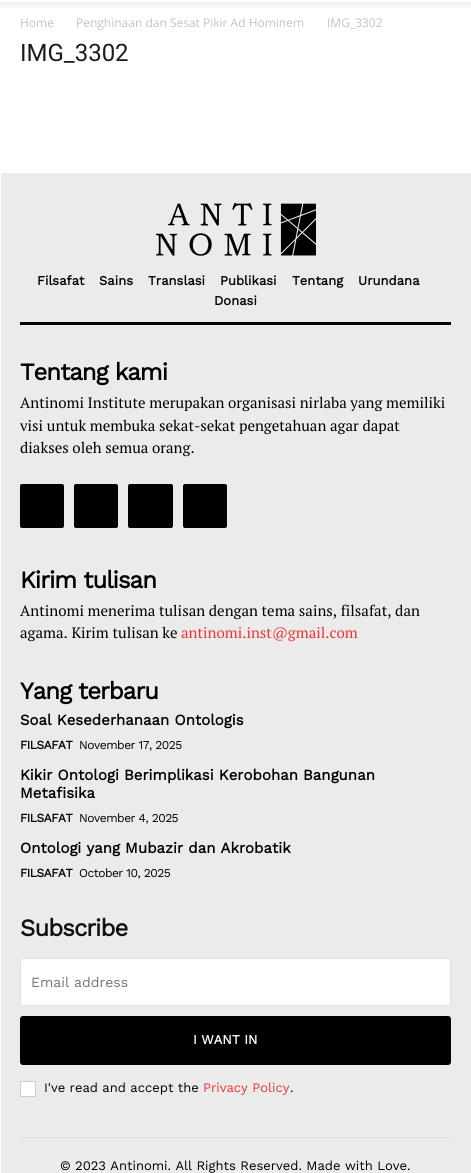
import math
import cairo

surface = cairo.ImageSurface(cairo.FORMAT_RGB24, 471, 1173)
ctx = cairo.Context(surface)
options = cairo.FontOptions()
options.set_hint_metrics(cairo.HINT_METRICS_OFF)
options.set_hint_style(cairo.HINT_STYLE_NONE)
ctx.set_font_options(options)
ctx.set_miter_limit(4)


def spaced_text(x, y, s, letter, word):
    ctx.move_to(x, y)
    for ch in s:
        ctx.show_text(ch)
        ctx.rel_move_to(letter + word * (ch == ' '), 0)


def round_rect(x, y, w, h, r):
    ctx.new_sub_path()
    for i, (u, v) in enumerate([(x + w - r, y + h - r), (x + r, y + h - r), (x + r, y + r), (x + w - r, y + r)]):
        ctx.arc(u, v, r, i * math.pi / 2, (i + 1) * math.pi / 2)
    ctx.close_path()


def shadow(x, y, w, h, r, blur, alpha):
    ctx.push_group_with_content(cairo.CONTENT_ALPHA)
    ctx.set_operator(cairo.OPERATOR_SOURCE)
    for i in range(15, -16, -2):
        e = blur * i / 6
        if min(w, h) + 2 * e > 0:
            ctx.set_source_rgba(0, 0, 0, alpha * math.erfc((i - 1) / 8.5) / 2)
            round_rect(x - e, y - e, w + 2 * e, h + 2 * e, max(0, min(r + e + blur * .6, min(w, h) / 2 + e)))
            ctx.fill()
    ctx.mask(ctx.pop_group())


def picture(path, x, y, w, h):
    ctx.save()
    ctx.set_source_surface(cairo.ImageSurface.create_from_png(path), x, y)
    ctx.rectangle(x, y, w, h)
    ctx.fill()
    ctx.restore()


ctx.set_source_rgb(1, 1, 1)
ctx.paint()
ctx.save()
ctx.rectangle(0, 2, 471, 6)
ctx.clip()
ctx.set_source_rgb(0, 0, 0)
shadow(1, -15, 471, 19, 0, 5, 0.09)
ctx.restore()
ctx.select_font_face("Open Sans")
ctx.set_font_size(12)
ctx.set_source_rgb(0.765, 0.765, 0.765)
ctx.move_to(20, 27)
ctx.show_text("Home")
ctx.move_to(76, 27)
ctx.show_text("Penghinaan dan Sesat Pikir Ad Hominem")
ctx.move_to(327, 27)
ctx.show_text("IMG_3302")
ctx.select_font_face("Roboto")
ctx.set_font_size(24)
ctx.set_source_rgb(0.11, 0.11, 0.11)
ctx.move_to(20, 61)
ctx.show_text("IMG_3302")
ctx.set_source_rgb(0.918, 0.918, 0.918)
ctx.rectangle(1, 173, 470, 1000)
ctx.fill()
ctx.set_source_rgb(0, 0, 0)
ctx.rectangle(20, 322, 431, 3)
ctx.fill()
picture("img1.png", 156, 203, 160, 53)
ctx.select_font_face("Work Sans", cairo.FONT_SLANT_NORMAL, cairo.FONT_WEIGHT_BOLD)
ctx.set_font_size(13)
ctx.move_to(37, 285)
ctx.show_text("Filsafat")
ctx.move_to(99, 285)
ctx.show_text("Sains")
ctx.move_to(148, 285)
ctx.show_text("Translasi")
ctx.move_to(220, 285)
ctx.show_text("Publikasi")
ctx.move_to(292, 285)
ctx.show_text("Tentang")
ctx.move_to(358, 285)
ctx.show_text("Urundana")
ctx.move_to(214, 305)
ctx.show_text("Donasi")
ctx.set_font_size(24)
spaced_text(20, 380, "Tentang kami", -1, 0)
ctx.select_font_face("PT Serif")
ctx.set_font_size(15)
ctx.move_to(20, 408)
ctx.show_text("Antinomi Institute merupakan organisasi nirlaba yang memiliki")
ctx.move_to(20, 431)
ctx.show_text("visi untuk membuka sekat-sekat pengetahuan agar dapat")
ctx.move_to(20, 453)
ctx.show_text("diakses oleh semua orang.")
round_rect(20, 484, 44, 44, 2)
ctx.fill()
round_rect(74, 484, 44, 44, 2)
ctx.fill()
round_rect(128, 484, 45, 44, 2)
ctx.fill()
round_rect(183, 484, 44, 44, 2)
ctx.fill()
ctx.select_font_face("Work Sans", cairo.FONT_SLANT_NORMAL, cairo.FONT_WEIGHT_BOLD)
ctx.set_font_size(24)
spaced_text(20, 588, "Kirim tulisan", -1, 0)
ctx.select_font_face("PT Serif")
ctx.set_font_size(15)
ctx.move_to(20, 616)
ctx.show_text("Antinomi menerima tulisan dengan tema sains, filsafat, dan")
ctx.move_to(20, 638)
ctx.show_text("agama. Kirim tulisan ke")
ctx.set_source_rgb(0.925, 0.208, 0.208)
ctx.move_to(181, 638)
ctx.show_text("antinomi.inst@gmail.com")
ctx.select_font_face("Work Sans", cairo.FONT_SLANT_NORMAL, cairo.FONT_WEIGHT_BOLD)
ctx.set_font_size(24)
ctx.set_source_rgb(0, 0, 0)
spaced_text(20, 699, "Yang terbaru", -1, 0)
ctx.set_font_size(15)
ctx.move_to(20, 725)
ctx.show_text("Soal Kesederhanaan Ontologis")
ctx.set_font_size(12)
spaced_text(20, 749, "FILSAFAT", -0.5, 0)
ctx.select_font_face("Work Sans")
spaced_text(79, 749, "November 17, 2025", -0.5, 0)
ctx.select_font_face("Work Sans", cairo.FONT_SLANT_NORMAL, cairo.FONT_WEIGHT_BOLD)
ctx.set_font_size(15)
ctx.move_to(20, 780)
ctx.show_text("Kikir Ontologi Berimplikasi Kerobohan Bangunan")
ctx.move_to(20, 798)
ctx.show_text("Metafisika")
ctx.set_font_size(12)
spaced_text(20, 822, "FILSAFAT", -0.5, 0)
ctx.select_font_face("Work Sans")
spaced_text(79, 822, "November 4, 2025", -0.5, 0)
ctx.select_font_face("Work Sans", cairo.FONT_SLANT_NORMAL, cairo.FONT_WEIGHT_BOLD)
ctx.set_font_size(15)
ctx.move_to(20, 853)
ctx.show_text("Ontologi yang Mubazir dan Akrobatik")
ctx.set_font_size(12)
spaced_text(20, 877, "FILSAFAT", -0.5, 0)
ctx.select_font_face("Work Sans")
spaced_text(79, 877, "October 10, 2025", -0.5, 0)
ctx.select_font_face("Work Sans", cairo.FONT_SLANT_NORMAL, cairo.FONT_WEIGHT_BOLD)
ctx.set_font_size(24)
ctx.set_source_rgb(0.067, 0.067, 0.067)
spaced_text(20, 936, "Subscribe", -1, 0)
ctx.set_source_rgb(1, 1, 1)
round_rect(20.5, 958.5, 430, 47, 2.5)
ctx.fill_preserve()
ctx.set_source_rgb(0.882, 0.882, 0.882)
ctx.set_line_width(1)
ctx.stroke()
ctx.select_font_face("Work Sans")
ctx.set_font_size(14)
ctx.set_source_rgb(0.459, 0.459, 0.459)
ctx.move_to(31, 987)
ctx.show_text("Email address")
ctx.set_source_rgb(0, 0, 0)
round_rect(20, 1016, 431, 49, 3)
ctx.fill()
ctx.select_font_face("Work Sans", cairo.FONT_SLANT_NORMAL, cairo.FONT_WEIGHT_BOLD)
ctx.set_font_size(13)
ctx.set_source_rgb(1, 1, 1)
ctx.move_to(193, 1044)
ctx.show_text("I WANT IN")
ctx.rectangle(20.5, 1081.5, 15, 15)
ctx.fill_preserve()
ctx.set_source_rgb(0.8, 0.8, 0.8)
ctx.stroke()
ctx.select_font_face("Work Sans")
ctx.set_source_rgb(0, 0, 0)
ctx.move_to(44, 1092)
ctx.show_text("I've read and accept the")
ctx.set_source_rgb(0.925, 0.208, 0.208)
ctx.move_to(203, 1092)
ctx.show_text("Privacy Policy")
ctx.set_source_rgb(0, 0, 0)
ctx.move_to(290, 1092)
ctx.show_text(".")
ctx.set_source_rgb(0.867, 0.867, 0.867)
ctx.rectangle(20, 1137, 431, 1)
ctx.fill()
ctx.set_source_rgb(0, 0, 0)
ctx.move_to(60, 1170)
ctx.show_text("© 2023 Antinomi. All Rights Reserved. Made with Love.")
surface.write_to_png("page.png")
